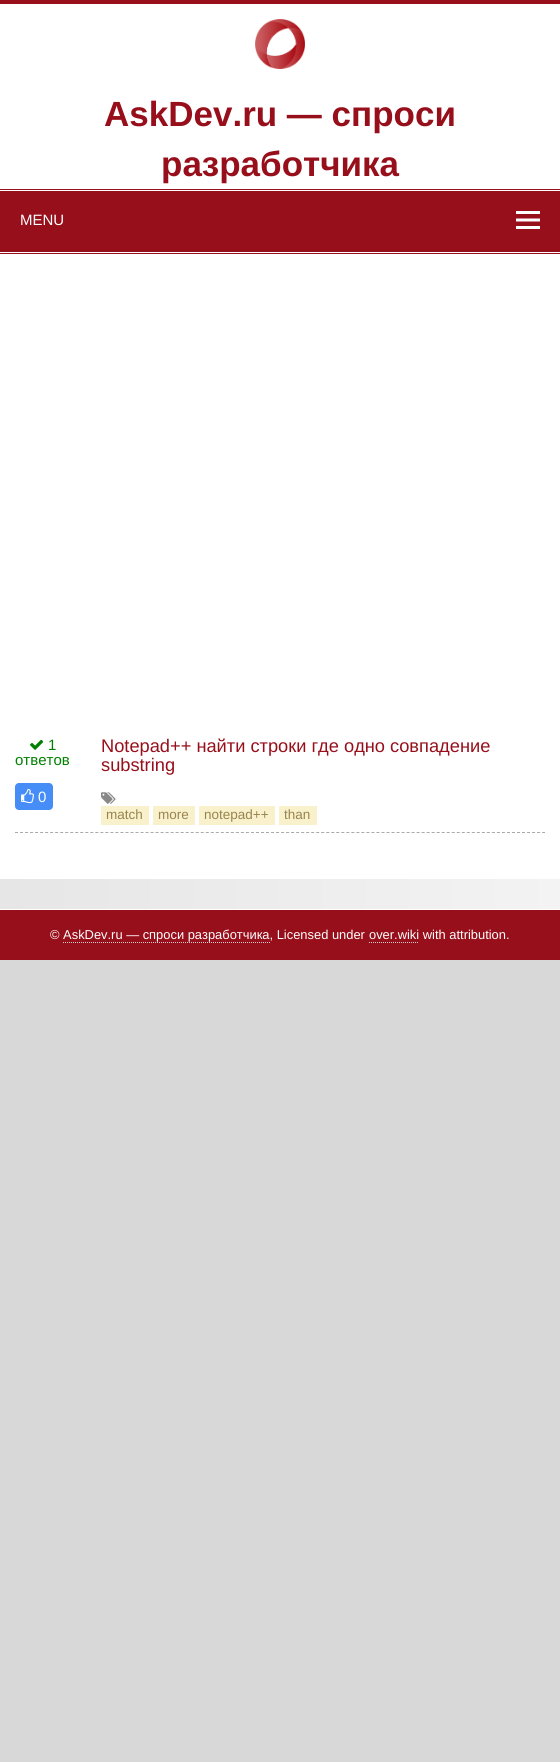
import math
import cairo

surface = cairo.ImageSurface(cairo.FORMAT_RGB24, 560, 1762)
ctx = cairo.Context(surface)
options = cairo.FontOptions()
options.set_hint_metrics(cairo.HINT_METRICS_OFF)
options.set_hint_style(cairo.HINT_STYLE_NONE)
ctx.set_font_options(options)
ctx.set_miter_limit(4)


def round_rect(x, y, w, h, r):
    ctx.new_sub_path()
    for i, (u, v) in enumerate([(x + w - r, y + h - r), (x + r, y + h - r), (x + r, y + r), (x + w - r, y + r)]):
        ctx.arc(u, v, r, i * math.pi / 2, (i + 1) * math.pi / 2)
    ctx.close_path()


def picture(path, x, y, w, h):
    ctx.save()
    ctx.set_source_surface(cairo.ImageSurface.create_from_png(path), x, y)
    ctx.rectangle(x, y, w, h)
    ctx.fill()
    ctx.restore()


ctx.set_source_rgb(0.847, 0.847, 0.847)
ctx.paint()
ctx.set_source_rgb(1, 1, 1)
ctx.rectangle(0, 4, 560, 906)
ctx.fill()
ctx.set_source_rgb(0.592, 0.059, 0.106)
ctx.rectangle(0, 0, 560, 4)
ctx.fill()
picture("img1.png", 255, 19, 50, 50)
ctx.select_font_face("Liberation Sans", cairo.FONT_SLANT_NORMAL, cairo.FONT_WEIGHT_BOLD)
ctx.set_font_size(35)
ctx.move_to(104, 126)
ctx.show_text("AskDev.ru — спроси")
ctx.move_to(161, 176)
ctx.show_text("разработчика")
ctx.rectangle(0, 189, 560, 1)
ctx.fill()
ctx.rectangle(0, 253, 560, 1)
ctx.fill()
ctx.rectangle(0, 191, 560, 61)
ctx.fill()
ctx.select_font_face("Liberation Sans")
ctx.set_font_size(15)
ctx.set_source_rgb(1, 1, 1)
ctx.move_to(20, 225)
ctx.show_text("MENU")
picture("img2.png", 516, 211, 24, 18)
ctx.new_path()
ctx.move_to(15, 832.5)
ctx.line_to(545, 832.5)
ctx.set_source_rgb(0.667, 0.667, 0.667)
ctx.set_line_width(1)
ctx.set_dash([3, 2.02])
ctx.stroke()
picture("img3.png", 30, 739, 14, 11)
ctx.set_source_rgb(0, 0.502, 0)
ctx.move_to(48, 750)
ctx.show_text("1")
ctx.move_to(15, 765)
ctx.show_text("ответов")
ctx.set_source_rgb(0.275, 0.553, 0.969)
round_rect(15, 783, 38, 27, 4)
ctx.fill()
picture("img4.png", 21, 789, 13, 15)
ctx.set_source_rgb(1, 1, 1)
ctx.move_to(38, 802)
ctx.show_text("0")
ctx.set_font_size(18.25)
ctx.set_source_rgb(0.592, 0.059, 0.106)
ctx.move_to(101, 752)
ctx.show_text("Notepad++ найти строки где одно совпадение")
ctx.move_to(101, 771)
ctx.show_text("substring")
picture("img5.png", 101, 792, 15, 12)
ctx.set_source_rgb(0.969, 0.945, 0.796)
ctx.rectangle(101, 806, 48, 19)
ctx.fill()
ctx.set_font_size(13.5)
ctx.set_source_rgb(0.596, 0.518, 0.31)
ctx.move_to(106, 819)
ctx.show_text("match")
ctx.set_source_rgb(0.969, 0.945, 0.796)
ctx.rectangle(153, 806, 42, 19)
ctx.fill()
ctx.set_source_rgb(0.596, 0.518, 0.31)
ctx.move_to(158, 819)
ctx.show_text("more")
ctx.set_source_rgb(0.969, 0.945, 0.796)
ctx.rectangle(199, 806, 76, 19)
ctx.fill()
ctx.set_source_rgb(0.596, 0.518, 0.31)
ctx.move_to(204, 819)
ctx.show_text("notepad++")
ctx.set_source_rgb(0.969, 0.945, 0.796)
ctx.rectangle(279, 806, 38, 19)
ctx.fill()
ctx.set_source_rgb(0.596, 0.518, 0.31)
ctx.move_to(284, 819)
ctx.show_text("than")
gradient = cairo.LinearGradient(0, 894, 560, 894)
gradient.add_color_stop_rgba(0, 0.902, 0.902, 0.902, 1)
gradient.add_color_stop_rgba(1, 0.953, 0.953, 0.953, 1)
ctx.set_source(gradient)
ctx.rectangle(0, 879, 560, 30)
ctx.fill()
ctx.set_source_rgb(0.592, 0.059, 0.106)
ctx.rectangle(0, 910, 560, 50)
ctx.fill()
ctx.set_font_size(12.9)
ctx.set_source_rgb(1, 1, 1)
ctx.move_to(50, 939)
ctx.show_text("© AskDev.ru — спроси разработчика, Licensed under")
ctx.move_to(369, 939)
ctx.show_text("over.wiki with attribution.")
ctx.new_path()
ctx.move_to(369, 942.5)
ctx.line_to(419, 942.5)
ctx.set_source_rgb(0.8, 0.8, 0.8)
ctx.set_dash([1, 1])
ctx.stroke()
ctx.new_path()
ctx.move_to(63, 942.5)
ctx.line_to(270, 942.5)
ctx.stroke()
surface.write_to_png("page.png")
